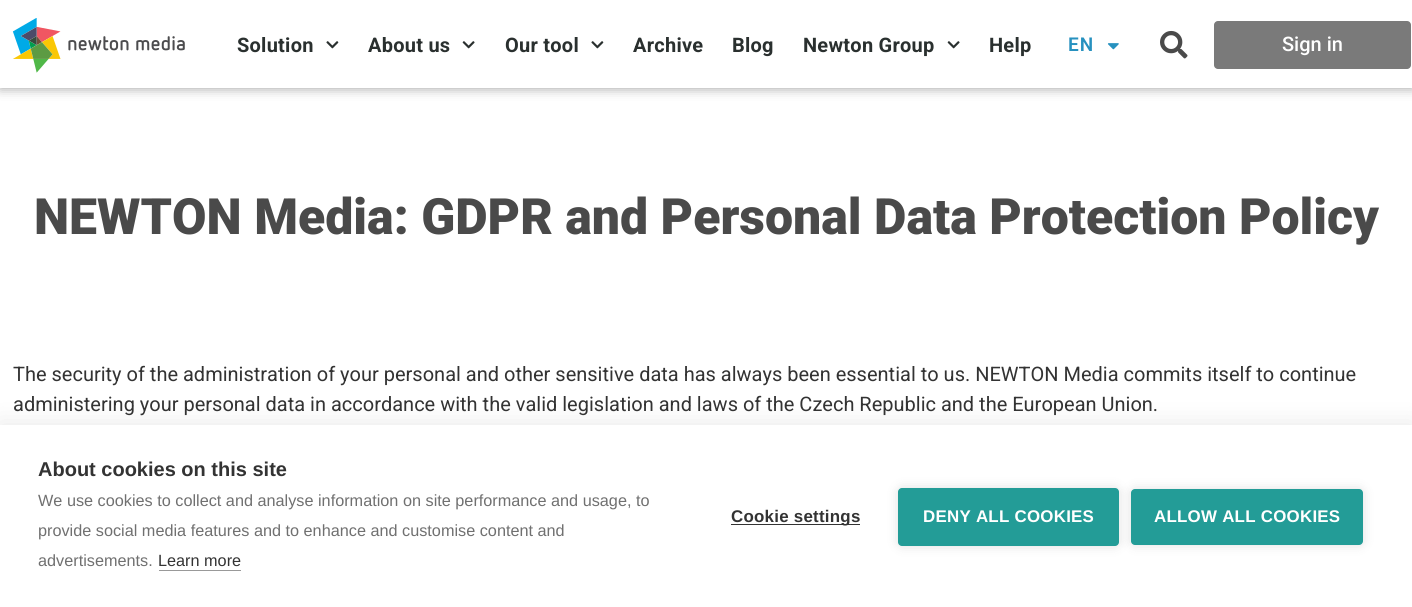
import math
import cairo

surface = cairo.ImageSurface(cairo.FORMAT_RGB24, 1412, 607)
ctx = cairo.Context(surface)
options = cairo.FontOptions()
options.set_hint_metrics(cairo.HINT_METRICS_OFF)
options.set_hint_style(cairo.HINT_STYLE_NONE)
ctx.set_font_options(options)
ctx.set_miter_limit(4)


def spaced_text(x, y, s, letter, word):
    ctx.move_to(x, y)
    for ch in s:
        ctx.show_text(ch)
        ctx.rel_move_to(letter + word * (ch == ' '), 0)


def round_rect(x, y, w, h, r):
    ctx.new_sub_path()
    for i, (u, v) in enumerate([(x + w - r, y + h - r), (x + r, y + h - r), (x + r, y + r), (x + w - r, y + r)]):
        ctx.arc(u, v, r, i * math.pi / 2, (i + 1) * math.pi / 2)
    ctx.close_path()


def shadow(x, y, w, h, r, blur, alpha):
    ctx.push_group_with_content(cairo.CONTENT_ALPHA)
    ctx.set_operator(cairo.OPERATOR_SOURCE)
    for i in range(15, -16, -2):
        e = blur * i / 6
        if min(w, h) + 2 * e > 0:
            ctx.set_source_rgba(0, 0, 0, alpha * math.erfc((i - 1) / 8.5) / 2)
            round_rect(x - e, y - e, w + 2 * e, h + 2 * e, max(0, min(r + e + blur * .6, min(w, h) / 2 + e)))
            ctx.fill()
    ctx.mask(ctx.pop_group())


def picture(path, x, y, w, h):
    ctx.save()
    ctx.set_source_surface(cairo.ImageSurface.create_from_png(path), x, y)
    ctx.rectangle(x, y, w, h)
    ctx.fill()
    ctx.restore()


ctx.set_source_rgb(1, 1, 1)
ctx.paint()
ctx.set_source_rgb(0, 0, 0)
shadow(0, 0, 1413, 88, 0, 6, 0.39)
ctx.set_source_rgb(1, 1, 1)
ctx.rectangle(0, 0, 1412, 88)
ctx.fill()
picture("img1.png", 12, 18, 173, 55)
ctx.select_font_face("Roboto", cairo.FONT_SLANT_NORMAL, cairo.FONT_WEIGHT_BOLD)
ctx.set_font_size(20)
ctx.set_source_rgb(0.165, 0.188, 0.184)
spaced_text(237, 52, "Solution", 0.25, 0)
picture("img2.png", 326, 41, 13, 8)
spaced_text(368, 52, "About us", 0.25, 0)
picture("img3.png", 462, 41, 13, 8)
spaced_text(505, 52, "Our tool", 0.25, 0)
picture("img2.png", 591, 41, 13, 8)
spaced_text(633, 52, "Archive", 0.25, 0)
spaced_text(732, 52, "Blog", 0.25, 0)
spaced_text(803, 52, "Newton Group", 0.25, 0)
picture("img3.png", 947, 41, 13, 8)
spaced_text(989, 52, "Help", 0.25, 0)
ctx.select_font_face("Roboto SemiBold")
ctx.set_font_size(19)
ctx.set_source_rgb(0.153, 0.569, 0.749)
spaced_text(1068, 51, "EN", 1, 0)
picture("img4.png", 1107, 43, 12, 7)
picture("img5.png", 1160, 30, 28, 29)
ctx.set_source_rgb(0.478, 0.478, 0.478)
round_rect(1214, 21, 197, 48, 4)
ctx.fill()
ctx.select_font_face("Roboto Medium")
ctx.set_font_size(20)
ctx.set_source_rgb(1, 1, 1)
ctx.move_to(1282, 51)
ctx.show_text("Sign in")
ctx.select_font_face("Roboto Black")
ctx.set_font_size(50)
ctx.set_source_rgb(0.29, 0.29, 0.29)
ctx.move_to(34, 234)
ctx.show_text("NEWTON Media: GDPR and Personal Data Protection Policy")
ctx.select_font_face("Roboto")
ctx.set_font_size(20)
ctx.set_source_rgb(0.2, 0.2, 0.2)
ctx.move_to(13, 381)
ctx.show_text("The security of the administration of your personal and other sensitive data has always been essential to us. NEWTON Media commits itself to continue")
ctx.move_to(13, 411)
ctx.show_text("administering your personal data in accordance with the valid legislation and laws of the Czech Republic and the European Union.")
ctx.set_source_rgb(0, 0, 0)
shadow(0, 425, 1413, 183, 0, 12.5, 0.1)
ctx.set_source_rgb(1, 1, 1)
ctx.rectangle(0, 425, 1412, 182)
ctx.fill()
ctx.select_font_face("Liberation Sans", cairo.FONT_SLANT_NORMAL, cairo.FONT_WEIGHT_BOLD)
ctx.set_source_rgb(0.2, 0.2, 0.2)
ctx.move_to(38, 476)
ctx.show_text("About cookies on this site")
ctx.select_font_face("Liberation Sans")
ctx.set_font_size(16.25)
ctx.set_source_rgb(0.439, 0.439, 0.439)
ctx.move_to(38, 506)
ctx.show_text("We use cookies to collect and analyse information on site performance and usage, to")
ctx.move_to(38, 536)
ctx.show_text("provide social media features and to enhance and customise content and")
ctx.move_to(38, 566)
ctx.show_text("advertisements.")
ctx.set_source_rgb(0.2, 0.2, 0.2)
ctx.move_to(158, 566)
ctx.show_text("Learn more")
ctx.set_source_rgb(0.6, 0.6, 0.6)
ctx.rectangle(159, 570, 82, 1)
ctx.fill()
ctx.set_source_rgb(0.2, 0.2, 0.2)
ctx.rectangle(731, 524, 129, 1)
ctx.fill()
ctx.select_font_face("Liberation Sans", cairo.FONT_SLANT_NORMAL, cairo.FONT_WEIGHT_BOLD)
ctx.set_font_size(16.9)
spaced_text(731, 522, "Cookie settings", 0.25, 0)
ctx.set_source_rgb(0, 0, 0)
shadow(898, 488, 221, 58, 4, 6, 0.12)
ctx.set_source_rgb(0.137, 0.612, 0.592)
round_rect(898, 488, 221, 58, 4)
ctx.fill()
ctx.set_source_rgb(1, 1, 1)
spaced_text(923, 522, "DENY ALL COOKIES", 0.25, 0)
ctx.set_source_rgb(0, 0, 0)
shadow(1131, 489, 232, 56, 4, 6, 0.12)
ctx.set_source_rgb(0.137, 0.612, 0.592)
round_rect(1131, 489, 232, 56, 4)
ctx.fill()
ctx.set_source_rgb(1, 1, 1)
spaced_text(1154, 522, "ALLOW ALL COOKIES", 0.25, 0)
surface.write_to_png("page.png")
